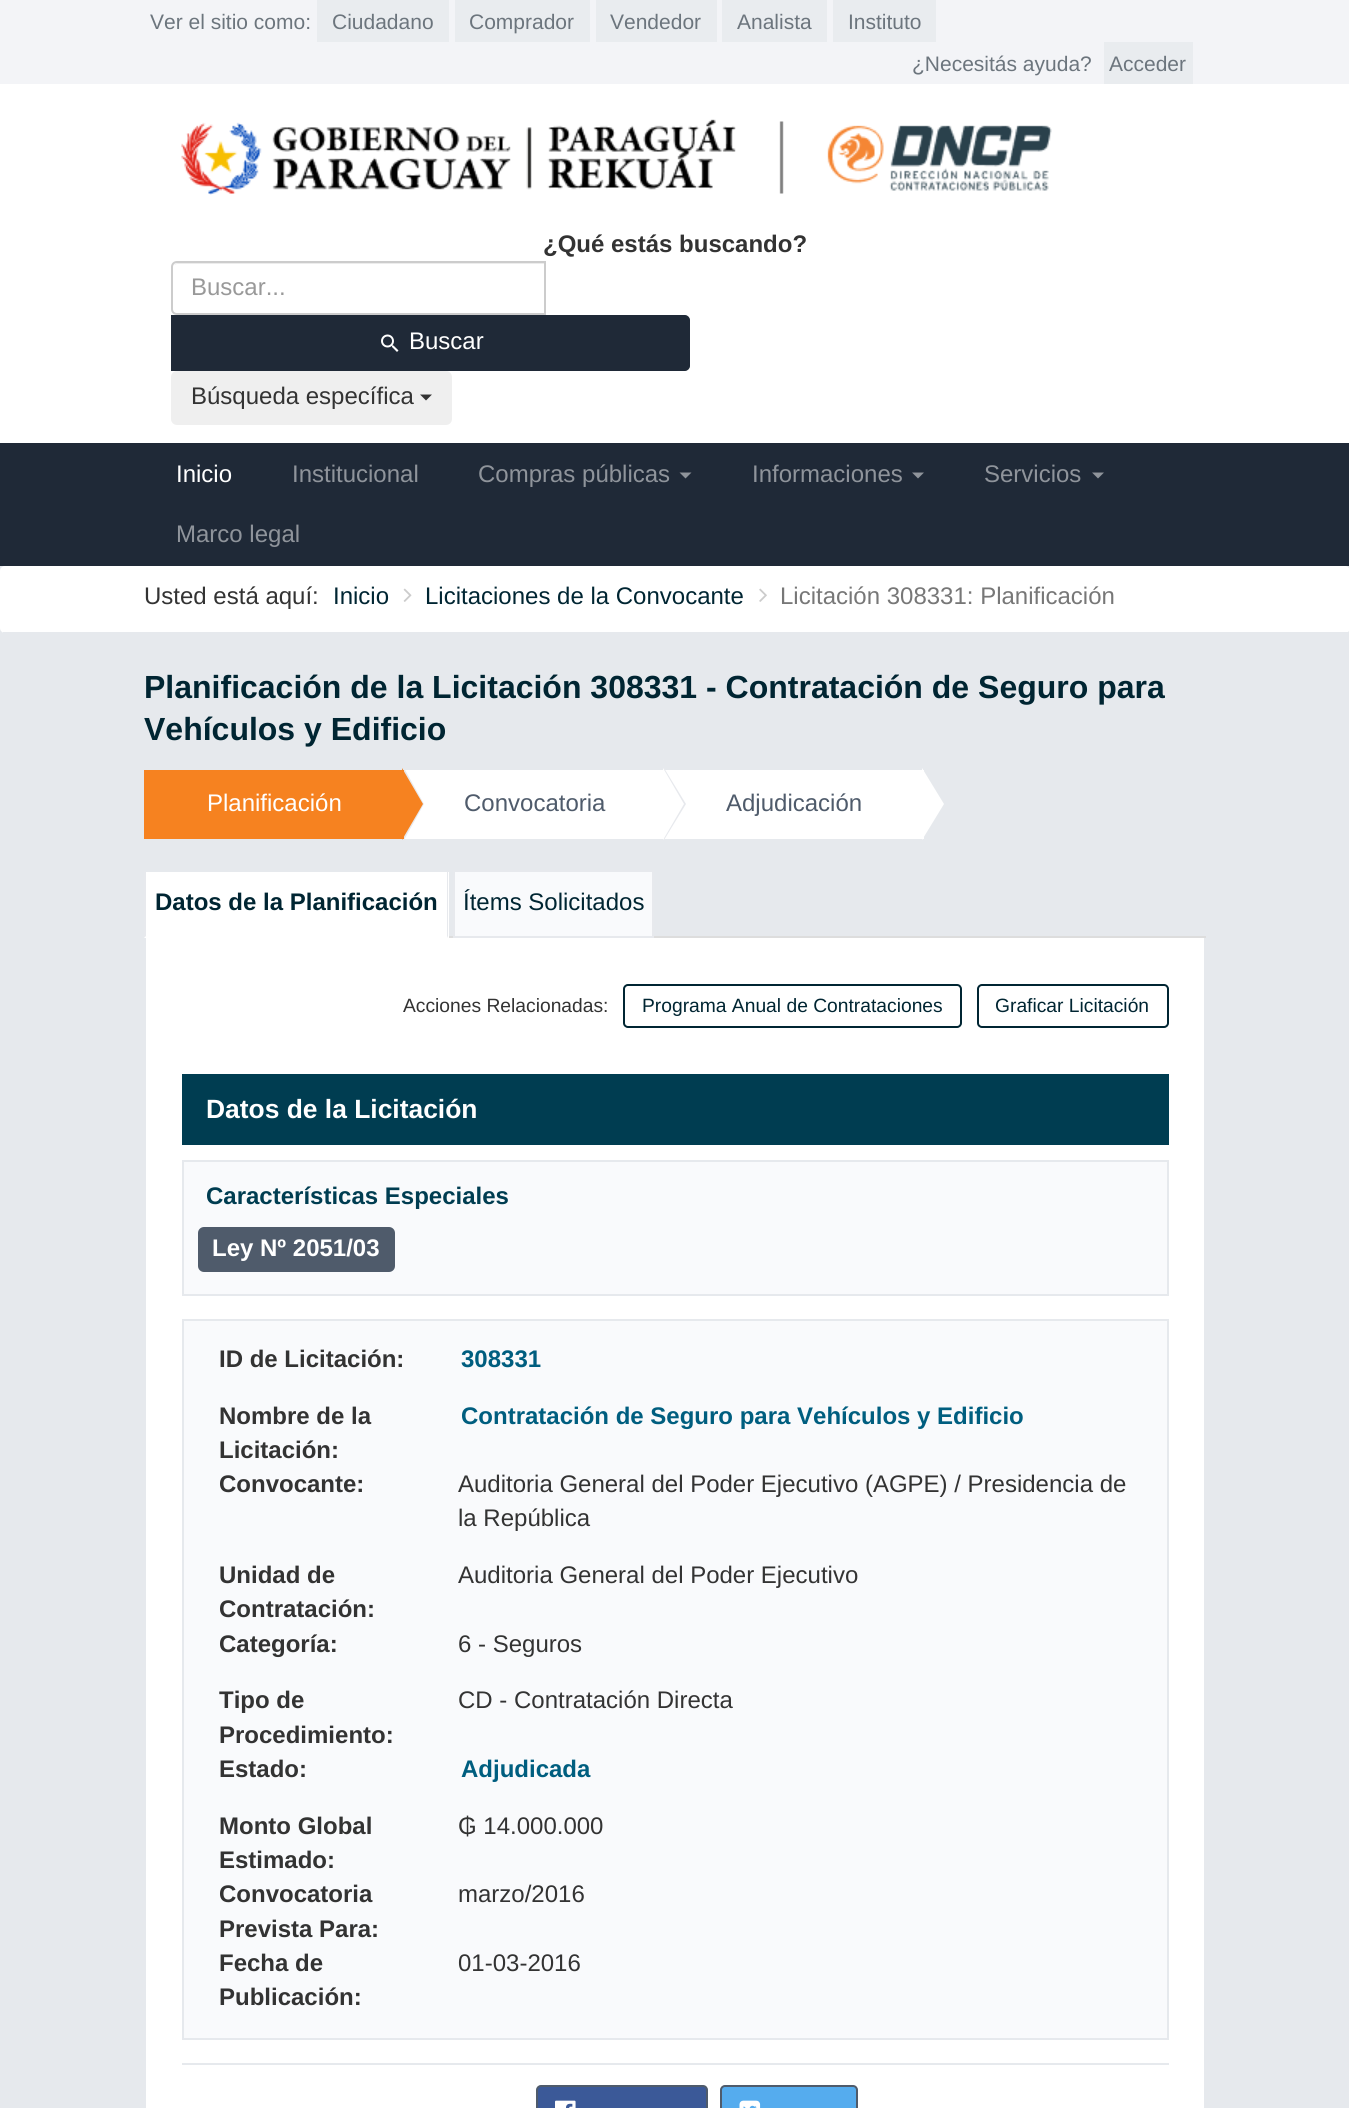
import math
import cairo

surface = cairo.ImageSurface(cairo.FORMAT_RGB24, 1349, 2108)
ctx = cairo.Context(surface)
options = cairo.FontOptions()
options.set_hint_metrics(cairo.HINT_METRICS_OFF)
options.set_hint_style(cairo.HINT_STYLE_NONE)
ctx.set_font_options(options)
ctx.set_miter_limit(4)


def round_rect(x, y, w, h, r):
    ctx.new_sub_path()
    for i, (u, v) in enumerate([(x + w - r, y + h - r), (x + r, y + h - r), (x + r, y + r), (x + w - r, y + r)]):
        ctx.arc(u, v, r, i * math.pi / 2, (i + 1) * math.pi / 2)
    ctx.close_path()


def picture(path, x, y, w, h):
    ctx.save()
    ctx.set_source_surface(cairo.ImageSurface.create_from_png(path), x, y)
    ctx.rectangle(x, y, w, h)
    ctx.fill()
    ctx.restore()


ctx.set_source_rgb(1, 1, 1)
ctx.paint()
ctx.set_source_rgb(0.953, 0.957, 0.965)
ctx.rectangle(0, 0, 1349, 84)
ctx.fill()
ctx.select_font_face("Liberation Sans")
ctx.set_font_size(21)
ctx.set_source_rgb(0.424, 0.459, 0.49)
ctx.move_to(150, 29)
ctx.show_text("Ver el sitio como:")
ctx.set_source_rgb(0.914, 0.925, 0.937)
ctx.rectangle(317, 0, 132, 42)
ctx.fill()
ctx.set_source_rgb(0.424, 0.459, 0.49)
ctx.move_to(332, 29)
ctx.show_text("Ciudadano")
ctx.set_source_rgb(0.914, 0.925, 0.937)
ctx.rectangle(455, 0, 135, 42)
ctx.fill()
ctx.set_source_rgb(0.424, 0.459, 0.49)
ctx.move_to(469, 29)
ctx.show_text("Comprador")
ctx.set_source_rgb(0.914, 0.925, 0.937)
ctx.rectangle(596, 0, 121, 42)
ctx.fill()
ctx.set_source_rgb(0.424, 0.459, 0.49)
ctx.move_to(610, 29)
ctx.show_text("Vendedor")
ctx.set_source_rgb(0.914, 0.925, 0.937)
ctx.rectangle(722, 0, 105, 42)
ctx.fill()
ctx.set_source_rgb(0.424, 0.459, 0.49)
ctx.move_to(737, 29)
ctx.show_text("Analista")
ctx.set_source_rgb(0.914, 0.925, 0.937)
ctx.rectangle(833, 0, 103, 42)
ctx.fill()
ctx.set_source_rgb(0.424, 0.459, 0.49)
ctx.move_to(848, 29)
ctx.show_text("Instituto")
ctx.move_to(912, 71)
ctx.show_text("¿Necesitás ayuda?")
ctx.set_source_rgb(0.914, 0.925, 0.937)
ctx.rectangle(1104, 42, 89, 42)
ctx.fill()
ctx.set_source_rgb(0.424, 0.459, 0.49)
ctx.move_to(1109, 71)
ctx.show_text("Acceder")
picture("img1.png", 181, 119, 871, 76)
ctx.select_font_face("Liberation Sans", cairo.FONT_SLANT_NORMAL, cairo.FONT_WEIGHT_BOLD)
ctx.set_font_size(24)
ctx.set_source_rgb(0.2, 0.2, 0.2)
ctx.move_to(543, 252)
ctx.show_text("¿Qué estás buscando?")
ctx.set_source_rgb(0.925, 0.925, 0.925)
ctx.new_path()
ctx.move_to(177, 264)
ctx.line_to(544, 264)
ctx.line_to(544, 314)
ctx.line_to(545, 314)
ctx.line_to(545, 263)
ctx.line_to(178, 263)
ctx.curve_to(176, 263, 175, 264, 174, 265)
ctx.close_path()
ctx.fill()
ctx.new_path()
ctx.move_to(177, 262)
ctx.line_to(545, 262)
ctx.line_to(545, 314)
ctx.line_to(177, 314)
ctx.curve_to(174, 314, 172, 312, 172, 309)
ctx.line_to(172, 267)
ctx.curve_to(172, 264, 174, 262, 177, 262)
ctx.close_path()
ctx.set_source_rgb(0.8, 0.8, 0.8)
ctx.stroke()
ctx.select_font_face("Liberation Sans")
ctx.set_source_rgb(0.6, 0.6, 0.6)
ctx.move_to(191, 295)
ctx.show_text("Buscar...")
ctx.set_source_rgb(0.122, 0.161, 0.216)
ctx.new_path()
ctx.move_to(172, 316)
ctx.line_to(685, 316)
ctx.curve_to(687, 316, 689, 318, 689, 320)
ctx.line_to(689, 366)
ctx.curve_to(689, 368, 687, 370, 685, 370)
ctx.line_to(172, 370)
ctx.close_path()
ctx.fill_preserve()
ctx.stroke()
picture("img2.png", 381, 334, 18, 18)
ctx.set_source_rgb(1, 1, 1)
ctx.move_to(409, 349)
ctx.show_text("Buscar")
ctx.set_source_rgb(0.937, 0.937, 0.937)
round_rect(171, 371, 281, 54, 6)
ctx.fill()
ctx.set_source_rgb(0.2, 0.2, 0.2)
ctx.move_to(191, 404)
ctx.show_text("Búsqueda específica")
ctx.new_path()
ctx.move_to(420, 394.5)
ctx.line_to(432, 394.5)
ctx.line_to(426, 400.5)
ctx.close_path()
ctx.fill()
ctx.set_source_rgb(0.122, 0.161, 0.216)
ctx.rectangle(0, 443, 1349, 123)
ctx.fill()
ctx.set_source_rgb(1, 1, 1)
ctx.move_to(176, 482)
ctx.show_text("Inicio")
ctx.set_source_rgb(0.561, 0.58, 0.608)
ctx.move_to(292, 482)
ctx.show_text("Institucional")
ctx.move_to(478, 482)
ctx.show_text("Compras públicas")
ctx.new_path()
ctx.move_to(679.5, 472.5)
ctx.line_to(691.5, 472.5)
ctx.line_to(685.5, 478.5)
ctx.close_path()
ctx.fill()
ctx.move_to(752, 482)
ctx.show_text("Informaciones")
ctx.new_path()
ctx.move_to(912, 472.5)
ctx.line_to(924, 472.5)
ctx.line_to(918, 478.5)
ctx.close_path()
ctx.fill()
ctx.move_to(984, 482)
ctx.show_text("Servicios")
ctx.new_path()
ctx.move_to(1092, 472.5)
ctx.line_to(1104, 472.5)
ctx.line_to(1098, 478.5)
ctx.close_path()
ctx.fill()
ctx.move_to(176, 542)
ctx.show_text("Marco legal")
ctx.set_source_rgb(0.902, 0.914, 0.929)
ctx.rectangle(0, 566, 1349, 1542)
ctx.fill()
ctx.set_source_rgb(1, 1, 1)
round_rect(0, 566, 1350, 67, 5)
ctx.fill()
ctx.set_source_rgb(0.902, 0.914, 0.929)
ctx.rectangle(3, 632, 1346, 1)
ctx.fill()
ctx.set_source_rgb(0.2, 0.2, 0.2)
ctx.move_to(144, 604)
ctx.show_text("Usted está aquí:")
ctx.set_source_rgb(0, 0.145, 0.196)
ctx.move_to(333, 604)
ctx.show_text("Inicio")
picture("img3.png", 403, 588, 9, 14)
ctx.move_to(425, 604)
ctx.show_text("Licitaciones de la Convocante")
picture("img4.png", 759, 588, 8, 14)
ctx.set_source_rgb(0.467, 0.467, 0.467)
ctx.move_to(780, 604)
ctx.show_text("Licitación 308331: Planificación")
ctx.select_font_face("Liberation Sans", cairo.FONT_SLANT_NORMAL, cairo.FONT_WEIGHT_BOLD)
ctx.set_font_size(32)
ctx.set_source_rgb(0, 0.145, 0.196)
ctx.move_to(144, 698)
ctx.show_text("Planificación de la Licitación 308331 - Contratación de Seguro para")
ctx.move_to(144, 740)
ctx.show_text("Vehículos y Edificio")
ctx.set_source_rgb(0.961, 0.51, 0.125)
ctx.rectangle(144, 770, 260, 69)
ctx.fill()
ctx.select_font_face("Liberation Sans")
ctx.set_font_size(24)
ctx.set_source_rgb(1, 1, 1)
ctx.move_to(207, 811)
ctx.show_text("Planificación")
ctx.rectangle(404, 770, 520, 69)
ctx.fill()
ctx.set_source_rgb(0.906, 0.914, 0.929)
ctx.new_path()
ctx.move_to(404, 840)
ctx.line_to(404, 768)
ctx.line_to(424, 804)
ctx.close_path()
ctx.fill()
ctx.set_source_rgb(0.961, 0.51, 0.125)
ctx.new_path()
ctx.move_to(402, 840)
ctx.line_to(402, 768)
ctx.line_to(423, 804)
ctx.close_path()
ctx.fill()
ctx.set_source_rgb(0.31, 0.357, 0.42)
ctx.move_to(464, 811)
ctx.show_text("Convocatoria")
ctx.set_source_rgb(0.906, 0.914, 0.929)
ctx.new_path()
ctx.move_to(664, 840)
ctx.line_to(664, 768)
ctx.line_to(686, 804)
ctx.close_path()
ctx.fill()
ctx.set_source_rgb(1, 1, 1)
ctx.new_path()
ctx.move_to(663, 840)
ctx.line_to(663, 768)
ctx.line_to(684, 804)
ctx.close_path()
ctx.fill()
ctx.set_source_rgb(0.31, 0.357, 0.42)
ctx.move_to(726, 811)
ctx.show_text("Adjudicación")
ctx.set_source_rgb(1, 1, 1)
ctx.new_path()
ctx.move_to(922, 840)
ctx.line_to(922, 768)
ctx.line_to(944, 804)
ctx.close_path()
ctx.fill()
ctx.set_source_rgb(0.867, 0.867, 0.867)
ctx.rectangle(449, 936, 757, 2)
ctx.fill()
ctx.set_source_rgb(1, 1, 1)
ctx.rectangle(144, 872, 305, 66)
ctx.fill()
ctx.set_source_rgb(0.906, 0.914, 0.929)
ctx.new_path()
ctx.move_to(448, 870)
ctx.line_to(448, 938)
ctx.line_to(447, 936)
ctx.line_to(447, 872)
ctx.close_path()
ctx.fill()
ctx.new_path()
ctx.move_to(144, 938)
ctx.line_to(144, 870)
ctx.line_to(146, 872)
ctx.line_to(146, 936)
ctx.close_path()
ctx.fill()
ctx.select_font_face("Liberation Sans", cairo.FONT_SLANT_NORMAL, cairo.FONT_WEIGHT_BOLD)
ctx.set_source_rgb(0, 0.145, 0.196)
ctx.move_to(155, 910)
ctx.show_text("Datos de la Planificación")
ctx.set_source_rgb(0.973, 0.98, 0.988)
ctx.rectangle(454, 871, 199, 66)
ctx.fill_preserve()
ctx.set_source_rgb(0.906, 0.914, 0.929)
ctx.stroke()
ctx.select_font_face("Liberation Sans")
ctx.set_source_rgb(0, 0.145, 0.196)
ctx.move_to(463, 910)
ctx.show_text("Ítems Solicitados")
ctx.set_source_rgb(1, 1, 1)
ctx.rectangle(146, 938, 1058, 1170)
ctx.fill()
ctx.set_font_size(19.25)
ctx.set_source_rgb(0.2, 0.2, 0.2)
ctx.move_to(403, 1012)
ctx.show_text("Acciones Relacionadas:")
round_rect(624, 985, 337, 42, 4)
ctx.set_source_rgb(0, 0.145, 0.196)
ctx.stroke()
ctx.move_to(642, 1012)
ctx.show_text("Programa Anual de Contrataciones")
round_rect(978, 985, 190, 42, 4)
ctx.stroke()
ctx.move_to(995, 1012)
ctx.show_text("Graficar Licitación")
ctx.set_source_rgb(0, 0.239, 0.318)
ctx.rectangle(182, 1074, 987, 71)
ctx.fill()
ctx.select_font_face("Liberation Sans", cairo.FONT_SLANT_NORMAL, cairo.FONT_WEIGHT_BOLD)
ctx.set_font_size(26.4)
ctx.set_source_rgb(1, 1, 1)
ctx.move_to(206, 1118)
ctx.show_text("Datos de la Licitación")
ctx.set_source_rgb(0.973, 0.98, 0.988)
ctx.rectangle(183, 1161, 985, 134)
ctx.fill_preserve()
ctx.set_source_rgb(0.902, 0.914, 0.929)
ctx.stroke()
ctx.set_font_size(24)
ctx.set_source_rgb(0, 0.239, 0.318)
ctx.move_to(206, 1204)
ctx.show_text("Características Especiales")
ctx.set_source_rgb(0.31, 0.357, 0.42)
round_rect(198, 1227, 197, 45, 6)
ctx.fill()
ctx.set_source_rgb(1, 1, 1)
ctx.move_to(212, 1256)
ctx.show_text("Ley Nº 2051/03")
ctx.set_source_rgb(0.973, 0.98, 0.988)
ctx.rectangle(183, 1320, 985, 719)
ctx.fill_preserve()
ctx.set_source_rgb(0.902, 0.914, 0.929)
ctx.stroke()
ctx.set_source_rgb(0.2, 0.2, 0.2)
ctx.move_to(219, 1367)
ctx.show_text("ID de Licitación:")
ctx.set_source_rgb(0, 0.369, 0.498)
ctx.move_to(461, 1367)
ctx.show_text("308331")
ctx.set_source_rgb(0.2, 0.2, 0.2)
ctx.move_to(219, 1424)
ctx.show_text("Nombre de la")
ctx.move_to(219, 1458)
ctx.show_text("Licitación:")
ctx.set_source_rgb(0, 0.369, 0.498)
ctx.move_to(461, 1424)
ctx.show_text("Contratación de Seguro para Vehículos y Edificio")
ctx.set_source_rgb(0.2, 0.2, 0.2)
ctx.move_to(219, 1492)
ctx.show_text("Convocante:")
ctx.select_font_face("Liberation Sans")
ctx.move_to(458, 1492)
ctx.show_text("Auditoria General del Poder Ejecutivo (AGPE) / Presidencia de")
ctx.move_to(458, 1526)
ctx.show_text("la República")
ctx.select_font_face("Liberation Sans", cairo.FONT_SLANT_NORMAL, cairo.FONT_WEIGHT_BOLD)
ctx.move_to(219, 1583)
ctx.show_text("Unidad de")
ctx.move_to(219, 1617)
ctx.show_text("Contratación:")
ctx.select_font_face("Liberation Sans")
ctx.move_to(458, 1583)
ctx.show_text("Auditoria General del Poder Ejecutivo")
ctx.select_font_face("Liberation Sans", cairo.FONT_SLANT_NORMAL, cairo.FONT_WEIGHT_BOLD)
ctx.move_to(219, 1652)
ctx.show_text("Categoría:")
ctx.select_font_face("Liberation Sans")
ctx.move_to(458, 1652)
ctx.show_text("6 - Seguros")
ctx.select_font_face("Liberation Sans", cairo.FONT_SLANT_NORMAL, cairo.FONT_WEIGHT_BOLD)
ctx.move_to(219, 1708)
ctx.show_text("Tipo de")
ctx.move_to(219, 1743)
ctx.show_text("Procedimiento:")
ctx.select_font_face("Liberation Sans")
ctx.move_to(458, 1708)
ctx.show_text("CD - Contratación Directa")
ctx.select_font_face("Liberation Sans", cairo.FONT_SLANT_NORMAL, cairo.FONT_WEIGHT_BOLD)
ctx.move_to(219, 1777)
ctx.show_text("Estado:")
ctx.set_source_rgb(0, 0.369, 0.498)
ctx.move_to(461, 1777)
ctx.show_text("Adjudicada")
ctx.set_source_rgb(0.2, 0.2, 0.2)
ctx.move_to(219, 1834)
ctx.show_text("Monto Global")
ctx.move_to(219, 1868)
ctx.show_text("Estimado:")
ctx.select_font_face("Liberation Sans")
ctx.move_to(458, 1834)
ctx.show_text("₲ 14.000.000")
ctx.select_font_face("Liberation Sans", cairo.FONT_SLANT_NORMAL, cairo.FONT_WEIGHT_BOLD)
ctx.move_to(219, 1902)
ctx.show_text("Convocatoria")
ctx.move_to(219, 1937)
ctx.show_text("Prevista Para:")
ctx.select_font_face("Liberation Sans")
ctx.move_to(458, 1902)
ctx.show_text("marzo/2016")
ctx.select_font_face("Liberation Sans", cairo.FONT_SLANT_NORMAL, cairo.FONT_WEIGHT_BOLD)
ctx.move_to(219, 1971)
ctx.show_text("Fecha de")
ctx.move_to(219, 2005)
ctx.show_text("Publicación:")
ctx.select_font_face("Liberation Sans")
ctx.move_to(458, 1971)
ctx.show_text("01-03-2016")
ctx.set_source_rgb(0.902, 0.914, 0.929)
ctx.rectangle(182, 2063, 987, 2)
ctx.fill()
ctx.set_source_rgb(0.231, 0.349, 0.596)
round_rect(537, 2086, 170, 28, 4)
ctx.fill_preserve()
ctx.set_source_rgb(0.31, 0.357, 0.42)
ctx.stroke()
picture("img5.png", 555, 2100, 21, 8)
ctx.set_source_rgb(0.333, 0.675, 0.933)
round_rect(721, 2086, 136, 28, 4)
ctx.fill_preserve()
ctx.set_source_rgb(0.31, 0.357, 0.42)
ctx.stroke()
picture("img6.png", 739, 2100, 22, 8)
surface.write_to_png("page.png")
